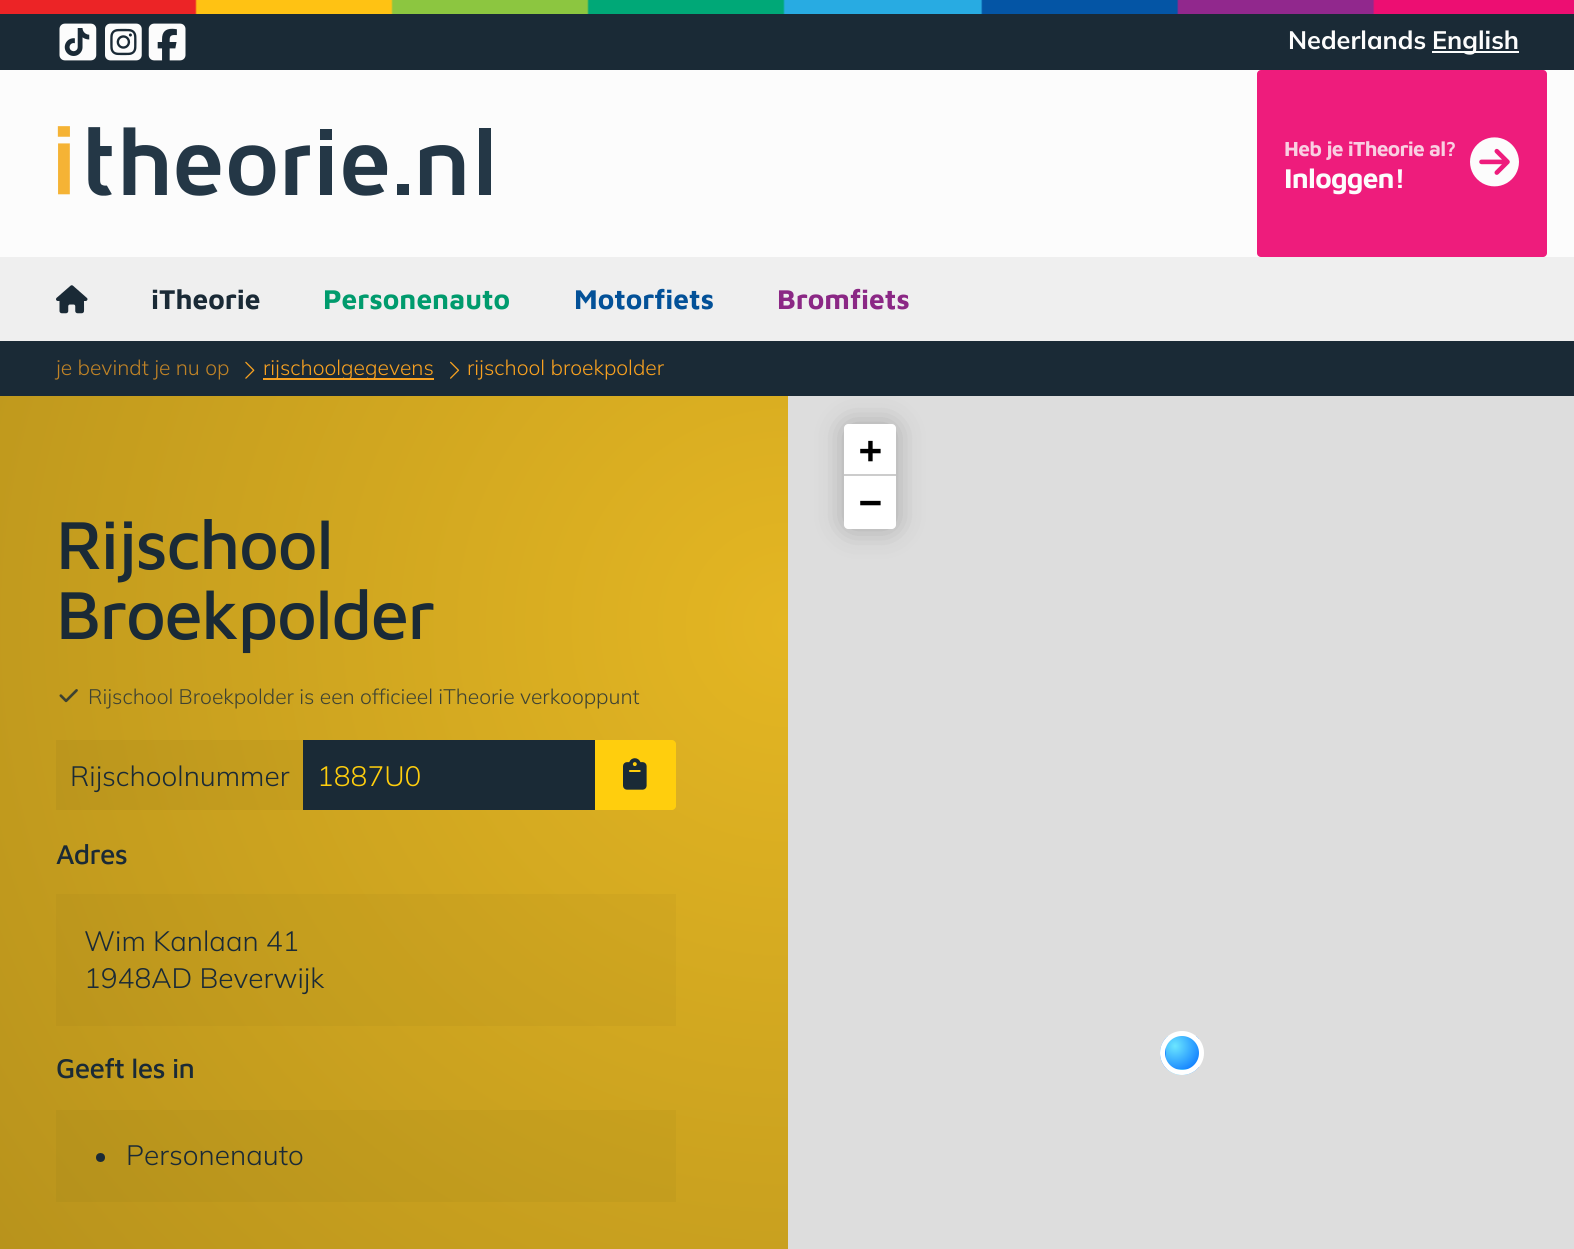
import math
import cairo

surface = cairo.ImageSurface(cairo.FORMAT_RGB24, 1574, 1249)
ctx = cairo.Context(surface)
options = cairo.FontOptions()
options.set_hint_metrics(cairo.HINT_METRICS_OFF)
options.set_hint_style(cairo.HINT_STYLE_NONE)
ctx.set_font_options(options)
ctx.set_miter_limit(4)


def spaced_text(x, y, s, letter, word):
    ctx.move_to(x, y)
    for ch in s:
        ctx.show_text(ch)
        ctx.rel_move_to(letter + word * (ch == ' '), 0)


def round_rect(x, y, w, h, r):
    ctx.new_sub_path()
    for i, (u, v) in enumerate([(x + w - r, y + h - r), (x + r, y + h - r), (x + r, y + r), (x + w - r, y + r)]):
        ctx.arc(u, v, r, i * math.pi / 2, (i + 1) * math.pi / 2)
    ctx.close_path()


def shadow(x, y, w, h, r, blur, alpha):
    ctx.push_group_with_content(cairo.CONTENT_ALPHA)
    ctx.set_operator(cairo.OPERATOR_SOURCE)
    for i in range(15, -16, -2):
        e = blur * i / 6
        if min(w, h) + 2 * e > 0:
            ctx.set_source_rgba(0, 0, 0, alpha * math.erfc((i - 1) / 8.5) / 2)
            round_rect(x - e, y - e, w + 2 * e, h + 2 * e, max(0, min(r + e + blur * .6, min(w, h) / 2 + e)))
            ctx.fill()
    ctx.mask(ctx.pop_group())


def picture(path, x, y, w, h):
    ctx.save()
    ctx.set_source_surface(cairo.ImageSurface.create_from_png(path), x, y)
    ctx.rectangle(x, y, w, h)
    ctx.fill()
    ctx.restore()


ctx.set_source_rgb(0.988, 0.988, 0.988)
ctx.paint()
picture("img1.png", 0, 0, 1574, 14)
ctx.set_source_rgb(0.102, 0.165, 0.212)
ctx.rectangle(0, 14, 1574, 56)
ctx.fill()
picture("img2.png", 59, 23, 38, 38)
picture("img3.png", 64, 28, 26, 28)
picture("img4.png", 105, 23, 37, 38)
picture("img5.png", 148, 23, 38, 38)
ctx.select_font_face("Mulish", cairo.FONT_SLANT_NORMAL, cairo.FONT_WEIGHT_BOLD)
ctx.set_font_size(25.25)
ctx.set_source_rgb(0.988, 0.988, 0.988)
ctx.move_to(1288, 49)
ctx.show_text("Nederlands")
ctx.rectangle(1432, 51, 87, 2)
ctx.fill()
ctx.move_to(1432, 49)
ctx.show_text("English")
picture("img6.png", 57, 126, 434, 70)
ctx.set_source_rgb(0.933, 0.11, 0.486)
round_rect(1257, 70, 290, 187, 4)
ctx.fill()
ctx.select_font_face("Maven Pro", cairo.FONT_SLANT_NORMAL, cairo.FONT_WEIGHT_BOLD)
ctx.set_font_size(21)
ctx.set_source_rgb(0.976, 0.812, 0.886)
spaced_text(1284, 156, "Heb je iTheorie al?", -0.75, 0)
ctx.set_font_size(28)
ctx.set_source_rgb(0.988, 0.988, 0.988)
spaced_text(1284, 188, "Inloggen!", -0.75, 0)
picture("img7.png", 1470, 137, 49, 50)
ctx.set_source_rgb(0.937, 0.937, 0.937)
ctx.rectangle(0, 257, 1574, 84)
ctx.fill()
picture("img8.png", 56, 285, 32, 29)
ctx.set_source_rgb(0.102, 0.165, 0.212)
ctx.move_to(151, 309)
ctx.show_text("iTheorie")
ctx.set_source_rgb(0, 0.608, 0.427)
ctx.move_to(323, 309)
ctx.show_text("Personenauto")
ctx.set_source_rgb(0.012, 0.318, 0.596)
ctx.move_to(574, 309)
ctx.show_text("Motorfiets")
ctx.set_source_rgb(0.545, 0.157, 0.522)
ctx.move_to(777, 309)
ctx.show_text("Bromfiets")
ctx.set_source_rgb(0.867, 0.867, 0.867)
ctx.rectangle(788, 396, 786, 853)
ctx.fill()
ctx.set_source_rgb(0, 0, 0)
shadow(844, 424, 52, 105, 7, 14, 0.25)
ctx.set_source_rgb(0.102, 0.165, 0.212)
ctx.rectangle(0, 341, 1574, 55)
ctx.fill()
ctx.select_font_face("Mulish Light")
ctx.set_font_size(21)
ctx.set_source_rgb(0.753, 0.514, 0.149)
ctx.move_to(56, 375)
ctx.show_text("je bevindt je nu op")
picture("img9.png", 245, 361, 10, 18)
ctx.set_source_rgb(0.969, 0.631, 0.125)
ctx.rectangle(263, 378, 171, 2)
ctx.fill()
ctx.move_to(263, 375)
ctx.show_text("rijschoolgegevens")
picture("img10.png", 450, 361, 10, 18)
ctx.move_to(467, 375)
ctx.show_text("rijschool broekpolder")
ctx.set_source_rgb(1, 1, 1)
ctx.new_path()
ctx.move_to(848, 424)
ctx.line_to(892, 424)
ctx.curve_to(894, 424, 896, 426, 896, 428)
ctx.line_to(896, 476)
ctx.line_to(844, 476)
ctx.line_to(844, 428)
ctx.curve_to(844, 426, 846, 424, 848, 424)
ctx.close_path()
ctx.fill()
ctx.set_source_rgb(0.8, 0.8, 0.8)
ctx.rectangle(844, 474, 52, 2)
ctx.fill()
ctx.select_font_face("DejaVu Sans Mono", cairo.FONT_SLANT_NORMAL, cairo.FONT_WEIGHT_BOLD)
ctx.set_font_size(38)
ctx.set_source_rgb(0, 0, 0)
ctx.move_to(859, 463)
ctx.show_text("+")
ctx.set_source_rgb(1, 1, 1)
ctx.new_path()
ctx.move_to(844, 476)
ctx.line_to(896, 476)
ctx.line_to(896, 525)
ctx.curve_to(896, 527, 894, 529, 892, 529)
ctx.line_to(848, 529)
ctx.curve_to(846, 529, 844, 527, 844, 525)
ctx.close_path()
ctx.fill()
ctx.set_source_rgb(0, 0, 0)
ctx.move_to(859, 515)
ctx.show_text("−")
ctx.save()
round_rect(1160, 1031, 44, 44, 22)
ctx.clip()
gradient = cairo.RadialGradient(1142, 1046, 0, 1142, 1046, 33)
gradient.add_color_stop_rgba(0, 0.42, 0.902, 1, 1)
gradient.add_color_stop_rgba(1, 0, 0.424, 1, 1)
ctx.set_source(gradient)
ctx.rectangle(1160, 1036, 6, 33)
ctx.fill()
gradient = cairo.RadialGradient(1175, 1046, 0, 1175, 1046, 33)
gradient.add_color_stop_rgba(0, 0.42, 0.902, 1, 1)
gradient.add_color_stop_rgba(1, 0, 0.424, 1, 1)
ctx.set_source(gradient)
ctx.rectangle(1166, 1036, 33, 33)
ctx.fill()
gradient = cairo.RadialGradient(1175, 1079, 0, 1175, 1079, 33)
gradient.add_color_stop_rgba(0, 0.42, 0.902, 1, 1)
gradient.add_color_stop_rgba(1, 0, 0.424, 1, 1)
ctx.set_source(gradient)
ctx.rectangle(1166, 1069, 33, 6)
ctx.fill()
ctx.restore()
ctx.arc(1182, 1053, 19.5, 0, 2 * math.pi)
ctx.set_source_rgb(1, 1, 1)
ctx.set_line_width(5)
ctx.stroke()
gradient = cairo.RadialGradient(788, 625, 0, 788, 625, 1005)
gradient.add_color_stop_rgba(0, 0.894, 0.714, 0.137, 1)
gradient.add_color_stop_rgba(1, 0.722, 0.576, 0.11, 1)
ctx.set_source(gradient)
ctx.rectangle(0, 396, 788, 853)
ctx.fill()
gradient = cairo.RadialGradient(788, 625, 0, 788, 625, 1005)
gradient.add_color_stop_rgba(0, 0.867, 0.694, 0.133, 1)
gradient.add_color_stop_rgba(1, 0.698, 0.561, 0.106, 1)
ctx.set_source(gradient)
ctx.rectangle(56, 1110, 620, 92)
ctx.fill()
ctx.select_font_face("Maven Pro Medium")
ctx.set_font_size(70)
ctx.set_source_rgb(0.102, 0.165, 0.212)
spaced_text(56, 569, "Rijschool", -1.75, 0)
spaced_text(56, 639, "Broekpolder", -1.75, 0)
picture("img11.png", 59, 689, 19, 14)
ctx.select_font_face("Mulish Light")
ctx.set_font_size(21)
ctx.set_source_rgb(0.247, 0.263, 0.196)
ctx.move_to(88, 704)
ctx.show_text("Rijschool Broekpolder is een officieel iTheorie verkooppunt")
ctx.set_source_rgba(0, 0, 0, 0.04)
ctx.rectangle(56, 740, 247, 70)
ctx.fill()
ctx.set_font_size(28)
ctx.set_source_rgb(0.102, 0.165, 0.212)
ctx.move_to(70, 786)
ctx.show_text("Rijschoolnummer")
ctx.rectangle(303, 740, 292, 70)
ctx.fill()
ctx.set_source_rgb(1, 0.808, 0.051)
ctx.move_to(317, 786)
ctx.show_text("1887U0")
ctx.new_path()
ctx.move_to(595, 740)
ctx.line_to(672, 740)
ctx.curve_to(674, 740, 676, 742, 676, 744)
ctx.line_to(676, 806)
ctx.curve_to(676, 808, 674, 810, 672, 810)
ctx.line_to(595, 810)
ctx.close_path()
ctx.fill()
picture("img12.png", 623, 758, 24, 32)
ctx.select_font_face("Maven Pro Medium")
ctx.set_source_rgb(0.102, 0.165, 0.212)
spaced_text(56, 864, "Adres", -0.75, 0)
ctx.set_source_rgba(0, 0, 0, 0.03)
ctx.rectangle(56, 894, 620, 132)
ctx.fill()
ctx.select_font_face("Mulish Light")
ctx.set_source_rgb(0.102, 0.165, 0.212)
ctx.move_to(84, 951)
ctx.show_text("Wim Kanlaan 41")
ctx.move_to(84, 988)
ctx.show_text("1948AD Beverwijk")
ctx.select_font_face("Maven Pro Medium")
spaced_text(56, 1078, "Geeft les in", -0.75, 0)
ctx.new_path()
ctx.arc(100.5, 1157.5, 4.5, 0, 2 * math.pi)
ctx.fill()
ctx.select_font_face("Mulish Light")
ctx.move_to(126, 1165)
ctx.show_text("Personenauto")
surface.write_to_png("page.png")
